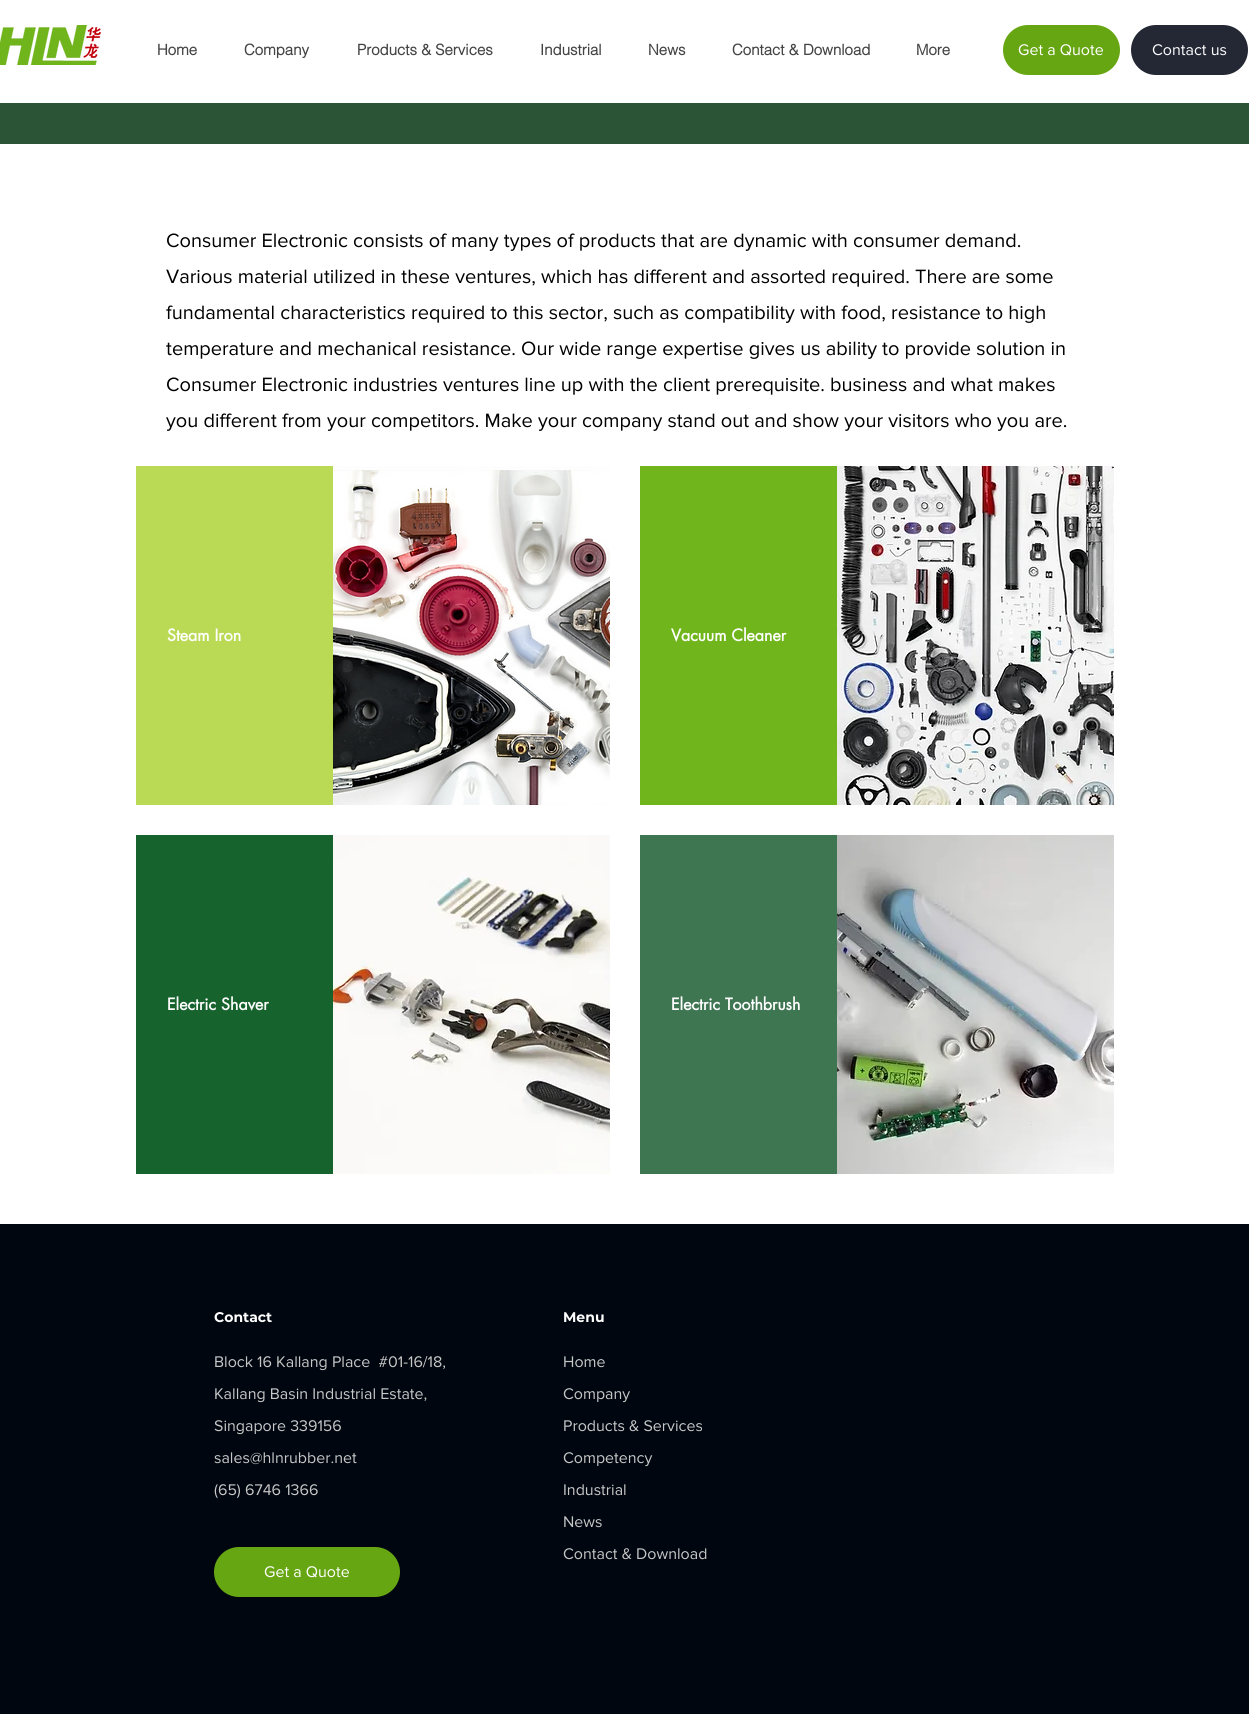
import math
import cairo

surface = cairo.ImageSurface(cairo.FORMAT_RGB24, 1249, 1714)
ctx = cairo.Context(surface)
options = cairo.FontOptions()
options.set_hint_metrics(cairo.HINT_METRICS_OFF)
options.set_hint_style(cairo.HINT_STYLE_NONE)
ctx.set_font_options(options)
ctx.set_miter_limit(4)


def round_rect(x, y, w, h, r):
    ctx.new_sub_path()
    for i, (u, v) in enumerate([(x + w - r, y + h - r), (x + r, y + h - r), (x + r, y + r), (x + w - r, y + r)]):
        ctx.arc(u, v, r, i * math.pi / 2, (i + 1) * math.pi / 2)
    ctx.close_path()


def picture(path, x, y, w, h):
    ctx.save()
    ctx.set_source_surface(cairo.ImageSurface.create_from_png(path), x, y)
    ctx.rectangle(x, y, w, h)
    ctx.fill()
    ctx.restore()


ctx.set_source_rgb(0.169, 0.325, 0.212)
ctx.paint()
ctx.set_source_rgb(1, 1, 1)
ctx.rectangle(0, 0, 1249, 103)
ctx.fill()
picture("img1.png", 0, 25, 101, 40)
ctx.select_font_face("helvetica", cairo.FONT_SLANT_NORMAL, cairo.FONT_WEIGHT_BOLD)
ctx.set_font_size(15)
ctx.set_source_rgb(0.267, 0.267, 0.267)
ctx.move_to(157, 55)
ctx.show_text("Home")
ctx.move_to(244, 55)
ctx.show_text("Company")
ctx.move_to(357, 55)
ctx.show_text("Products & Services")
ctx.move_to(540, 55)
ctx.show_text("Industrial")
ctx.move_to(648, 55)
ctx.show_text("News")
ctx.move_to(732, 55)
ctx.show_text("Contact & Download")
ctx.move_to(916, 55)
ctx.show_text("More")
ctx.set_source_rgb(0.404, 0.651, 0.078)
round_rect(1003, 25, 117, 50, 25)
ctx.fill()
ctx.select_font_face("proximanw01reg")
ctx.set_font_size(16)
ctx.set_source_rgb(1, 1, 1)
ctx.move_to(1018, 55)
ctx.show_text("Get a Quote")
ctx.set_source_rgb(0.141, 0.157, 0.204)
round_rect(1131, 25, 117, 50, 25)
ctx.fill()
ctx.set_source_rgb(1, 1, 1)
ctx.move_to(1152, 55)
ctx.show_text("Contact us")
ctx.rectangle(0, 144, 1249, 1080)
ctx.fill()
ctx.set_font_size(20)
ctx.set_source_rgb(0, 0, 0)
ctx.move_to(166, 247)
ctx.show_text("Consumer Electronic consists of many types of products that are dynamic with consumer demand.")
ctx.move_to(166, 283)
ctx.show_text("Various material utilized in these ventures, which has different and assorted required. There are some")
ctx.move_to(166, 319)
ctx.show_text("fundamental characteristics required to this sector, such as compatibility with food, resistance to high")
ctx.move_to(166, 355)
ctx.show_text("temperature and mechanical resistance. Our wide range expertise gives us ability to provide solution in")
ctx.move_to(166, 391)
ctx.show_text("Consumer Electronic industries ventures line up with the client prerequisite. business and what makes")
ctx.move_to(166, 427)
ctx.show_text("you different from your competitors. Make your company stand out and show your visitors who you are.")
ctx.set_source_rgb(0.729, 0.855, 0.333)
ctx.rectangle(136, 466, 197, 339)
ctx.fill()
ctx.select_font_face("futura", cairo.FONT_SLANT_NORMAL, cairo.FONT_WEIGHT_BOLD)
ctx.set_font_size(16)
ctx.set_source_rgb(1, 1, 1)
ctx.move_to(167, 641)
ctx.show_text("Steam Iron")
picture("img2.png", 333, 466, 277, 339)
ctx.set_source_rgb(0.09, 0.388, 0.176)
ctx.rectangle(136, 835, 197, 339)
ctx.fill()
ctx.set_source_rgb(1, 1, 1)
ctx.move_to(167, 1010)
ctx.show_text("Electric Shaver")
picture("img3.png", 333, 835, 277, 339)
ctx.set_source_rgb(0.439, 0.71, 0.11)
ctx.rectangle(640, 466, 197, 339)
ctx.fill()
ctx.set_source_rgb(1, 1, 1)
ctx.move_to(671, 641)
ctx.show_text("Vacuum Cleaner")
picture("img4.png", 837, 466, 277, 339)
ctx.set_source_rgb(0.247, 0.463, 0.322)
ctx.rectangle(640, 835, 197, 339)
ctx.fill()
ctx.set_source_rgb(1, 1, 1)
ctx.move_to(671, 1010)
ctx.show_text("Electric Toothbrush")
picture("img5.png", 837, 835, 277, 339)
ctx.set_source_rgb(0, 0.024, 0.059)
ctx.rectangle(0, 1224, 1249, 490)
ctx.fill()
ctx.select_font_face("Montserrat", cairo.FONT_SLANT_NORMAL, cairo.FONT_WEIGHT_BOLD)
ctx.set_font_size(14)
ctx.set_source_rgb(1, 1, 1)
ctx.move_to(214, 1322)
ctx.show_text("Contact")
ctx.select_font_face("proximanw01reg")
ctx.set_font_size(16)
ctx.set_source_rgb(0.78, 0.78, 0.78)
ctx.move_to(214, 1367)
ctx.show_text("Block 16 Kallang Place  #01-16/18,")
ctx.move_to(214, 1399)
ctx.show_text("Kallang Basin Industrial Estate,")
ctx.move_to(214, 1431)
ctx.show_text("Singapore 339156")
ctx.move_to(214, 1463)
ctx.show_text("sales@hlnrubber.net")
ctx.move_to(214, 1495)
ctx.show_text("(65) 6746 1366")
ctx.set_source_rgb(0.404, 0.651, 0.078)
round_rect(214, 1547, 186, 50, 25)
ctx.fill()
ctx.set_source_rgb(1, 1, 1)
ctx.move_to(264, 1577)
ctx.show_text("Get a Quote")
ctx.select_font_face("Montserrat", cairo.FONT_SLANT_NORMAL, cairo.FONT_WEIGHT_BOLD)
ctx.set_font_size(14)
ctx.move_to(563, 1322)
ctx.show_text("Menu")
ctx.select_font_face("proximanw01reg")
ctx.set_font_size(16)
ctx.set_source_rgb(0.78, 0.78, 0.78)
ctx.move_to(563, 1367)
ctx.show_text("Home")
ctx.move_to(563, 1399)
ctx.show_text("Company")
ctx.move_to(563, 1431)
ctx.show_text("Products & Services")
ctx.move_to(563, 1463)
ctx.show_text("Competency")
ctx.move_to(563, 1495)
ctx.show_text("Industrial")
ctx.move_to(563, 1527)
ctx.show_text("News")
ctx.move_to(563, 1559)
ctx.show_text("Contact & Download")
surface.write_to_png("page.png")
